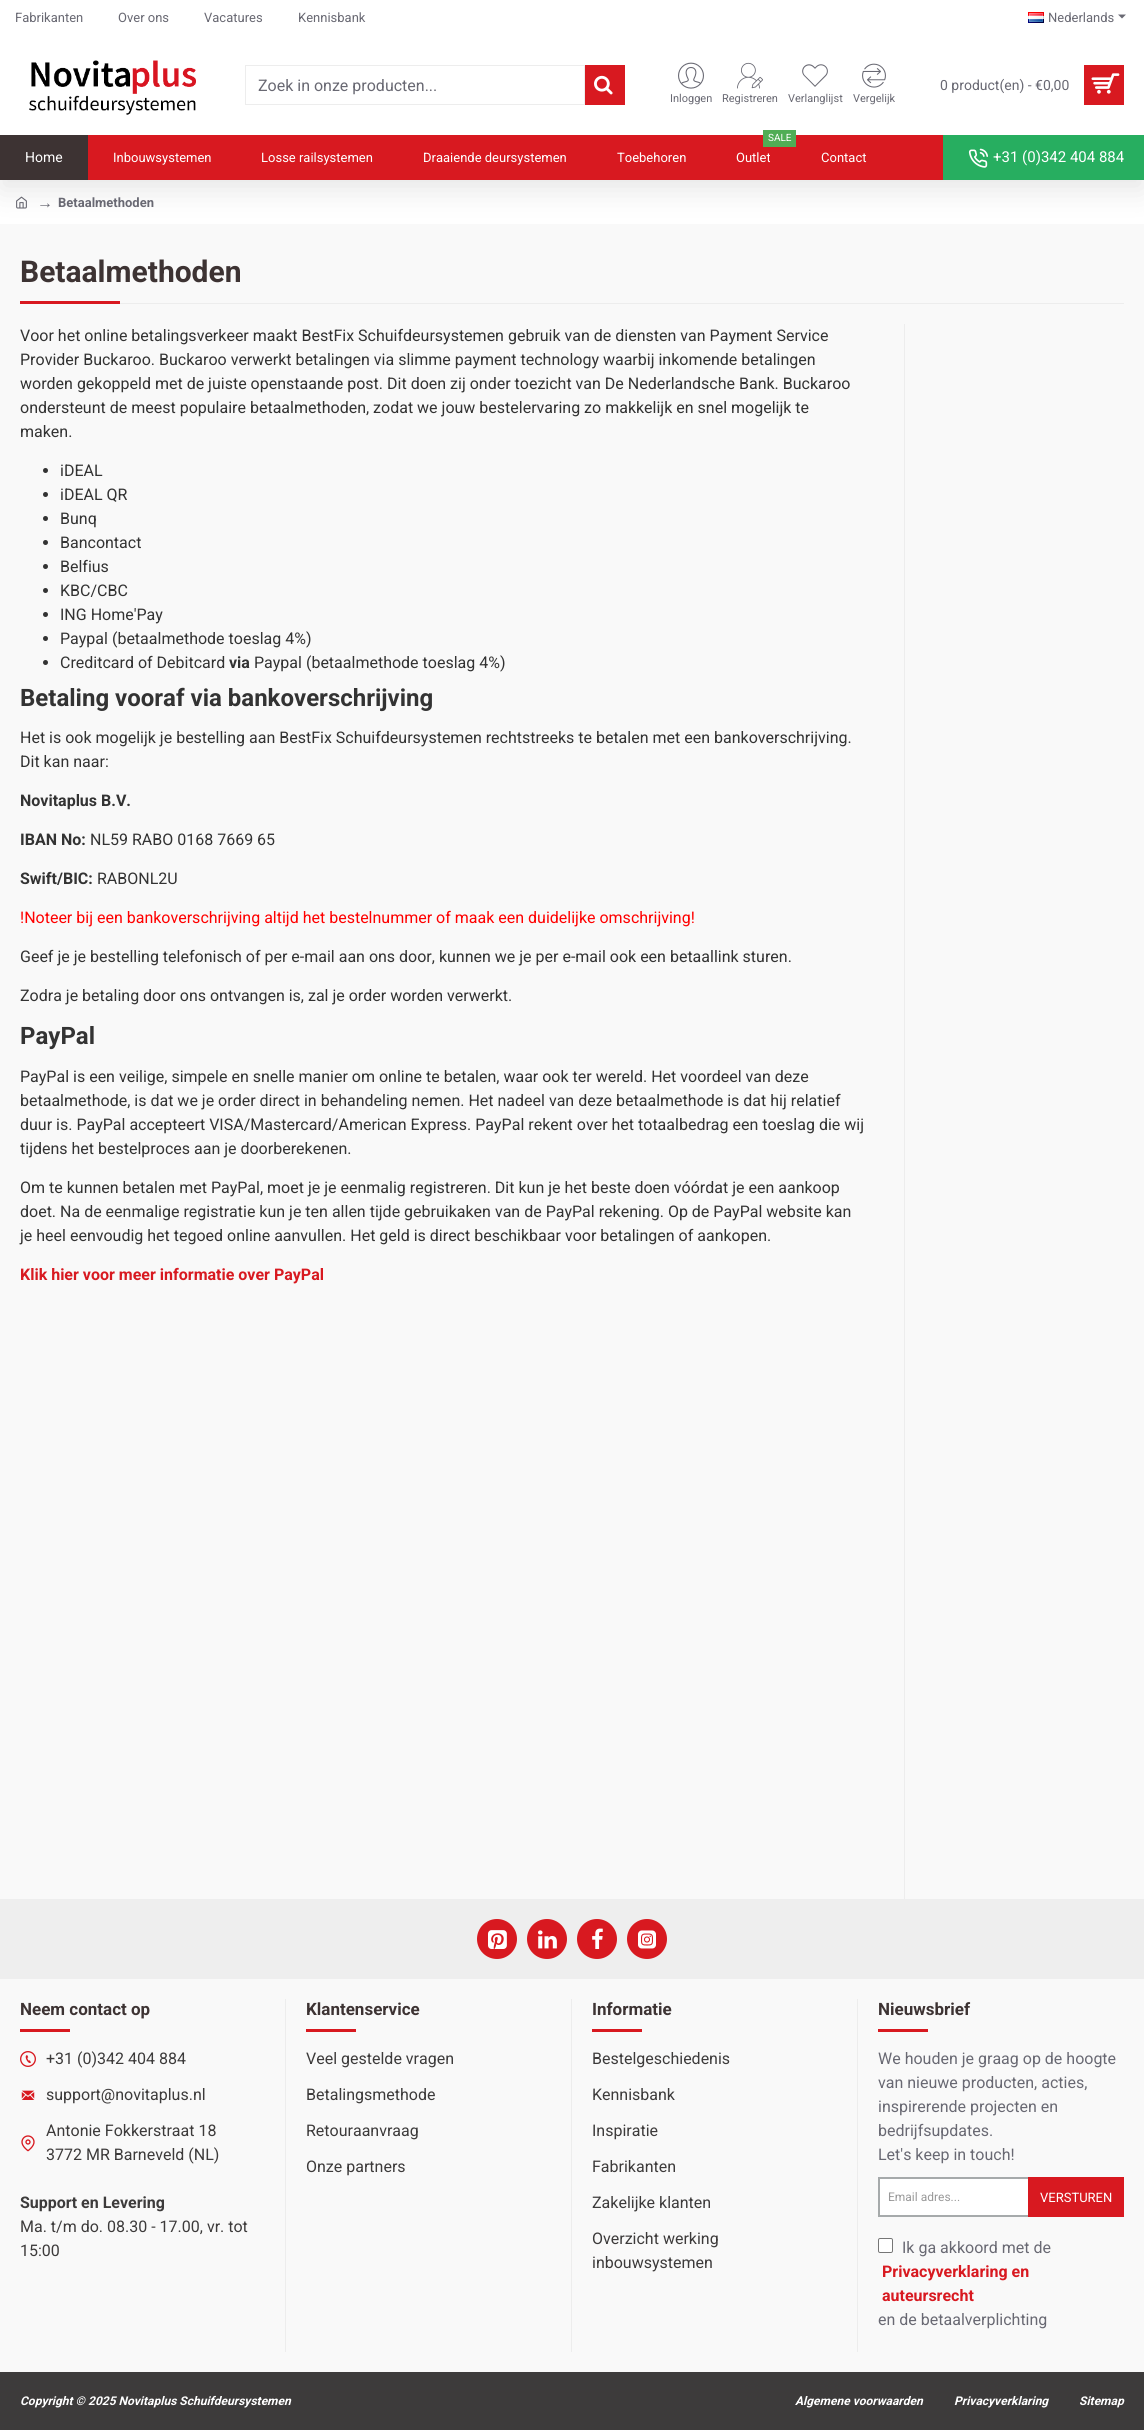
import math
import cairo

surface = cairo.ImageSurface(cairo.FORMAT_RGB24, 1144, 2430)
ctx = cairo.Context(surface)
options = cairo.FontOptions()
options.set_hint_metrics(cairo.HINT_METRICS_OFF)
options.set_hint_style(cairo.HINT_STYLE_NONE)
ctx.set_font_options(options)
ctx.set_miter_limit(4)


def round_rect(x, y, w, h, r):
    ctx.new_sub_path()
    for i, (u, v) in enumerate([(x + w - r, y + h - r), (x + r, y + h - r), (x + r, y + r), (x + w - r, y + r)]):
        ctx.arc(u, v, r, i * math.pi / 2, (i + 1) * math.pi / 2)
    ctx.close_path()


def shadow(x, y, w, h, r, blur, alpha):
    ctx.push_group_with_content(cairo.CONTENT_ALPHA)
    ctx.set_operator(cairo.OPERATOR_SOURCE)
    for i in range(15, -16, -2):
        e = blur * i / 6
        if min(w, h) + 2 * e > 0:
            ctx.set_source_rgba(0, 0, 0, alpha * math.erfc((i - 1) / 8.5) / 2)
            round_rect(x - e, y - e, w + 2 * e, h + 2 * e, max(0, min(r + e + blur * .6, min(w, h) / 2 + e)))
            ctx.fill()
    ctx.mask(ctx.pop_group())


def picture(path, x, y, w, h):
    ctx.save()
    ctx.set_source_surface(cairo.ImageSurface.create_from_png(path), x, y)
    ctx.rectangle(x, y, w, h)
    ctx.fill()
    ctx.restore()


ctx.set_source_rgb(0.973, 0.973, 0.973)
ctx.paint()
ctx.set_source_rgb(1, 1, 1)
ctx.rectangle(0, 180, 1144, 44)
ctx.fill()
picture("img10.png", 16, 196, 11, 13)
ctx.set_source_rgb(0, 0, 0)
shadow(0, 10, 1144, 180, 0, 15, 0.1)
ctx.set_source_rgb(1, 1, 1)
ctx.rectangle(0, 0, 1144, 135)
ctx.fill()
ctx.select_font_face("Roboto")
ctx.set_font_size(13)
ctx.set_source_rgb(0.412, 0.412, 0.451)
ctx.move_to(15, 22)
ctx.show_text("Fabrikanten")
ctx.move_to(118, 22)
ctx.show_text("Over ons")
ctx.move_to(204, 22)
ctx.show_text("Vacatures")
ctx.move_to(298, 22)
ctx.show_text("Kennisbank")
picture("img1.png", 1028, 12, 16, 11)
ctx.move_to(1048, 22)
ctx.show_text("Nederlands")
ctx.new_path()
ctx.move_to(1118, 14.5)
ctx.line_to(1126, 14.5)
ctx.line_to(1122, 18.5)
ctx.close_path()
ctx.fill()
picture("img2.png", 29, 60, 167, 55)
ctx.rectangle(245.5, 65.5, 339, 39)
ctx.set_source_rgb(0.929, 0.929, 0.929)
ctx.set_line_width(1)
ctx.stroke()
ctx.set_font_size(16)
ctx.set_source_rgb(0.412, 0.412, 0.451)
ctx.move_to(258, 91)
ctx.show_text("Zoek in onze producten...")
ctx.set_source_rgb(0.847, 0.098, 0.125)
ctx.rectangle(585, 67, 38, 36)
ctx.fill()
ctx.rectangle(585, 65, 40, 2)
ctx.fill()
ctx.rectangle(623, 65, 2, 40)
ctx.fill()
ctx.rectangle(585, 103, 40, 2)
ctx.fill()
picture("img3.png", 594, 75, 19, 20)
ctx.set_font_size(14)
ctx.set_source_rgb(0.412, 0.412, 0.451)
ctx.move_to(940, 90)
ctx.show_text("0 product(en) - €0,00")
ctx.set_source_rgb(0.847, 0.098, 0.125)
ctx.rectangle(1084, 65, 40, 40)
ctx.fill()
picture("img4.png", 1091, 73, 29, 21)
picture("img5.png", 678, 62, 26, 27)
ctx.set_font_size(11)
ctx.set_source_rgb(0.412, 0.412, 0.451)
ctx.move_to(670, 102)
ctx.show_text("Inloggen")
picture("img6.png", 737, 62, 26, 27)
ctx.move_to(722, 102)
ctx.show_text("Registreren")
picture("img7.png", 802, 64, 26, 23)
ctx.move_to(788, 102)
ctx.show_text("Verlanglijst")
picture("img8.png", 862, 63, 24, 25)
ctx.move_to(853, 102)
ctx.show_text("Vergelijk")
ctx.set_source_rgb(0.239, 0.2, 0.2)
ctx.rectangle(0, 135, 88, 45)
ctx.fill()
ctx.set_font_size(14)
ctx.set_source_rgb(1, 1, 1)
ctx.move_to(25, 162)
ctx.show_text("Home")
ctx.set_source_rgb(0.847, 0.098, 0.125)
ctx.rectangle(88, 135, 855, 45)
ctx.fill()
ctx.set_font_size(13)
ctx.set_source_rgb(1, 1, 1)
ctx.move_to(113, 162)
ctx.show_text("Inbouwsystemen")
ctx.move_to(261, 162)
ctx.show_text("Losse railsystemen")
ctx.move_to(423, 162)
ctx.show_text("Draaiende deursystemen")
ctx.move_to(617, 162)
ctx.show_text("Toebehoren")
ctx.set_source_rgb(0.314, 0.678, 0.333)
ctx.rectangle(763, 130, 33, 17)
ctx.fill()
ctx.set_font_size(10)
ctx.set_source_rgb(1, 1, 1)
ctx.move_to(768, 141)
ctx.show_text("SALE")
ctx.set_font_size(13)
ctx.move_to(736, 162)
ctx.show_text("Outlet")
ctx.move_to(821, 162)
ctx.show_text("Contact")
ctx.set_source_rgb(0.153, 0.682, 0.376)
ctx.rectangle(943, 135, 201, 45)
ctx.fill()
picture("img9.png", 968, 148, 20, 20)
ctx.set_font_size(15)
ctx.set_source_rgb(1, 1, 1)
ctx.move_to(993, 162)
ctx.show_text("+31 (0)342 404 884")
ctx.select_font_face("Liberation Serif")
ctx.set_font_size(16)
ctx.set_source_rgb(0.412, 0.412, 0.451)
ctx.move_to(37, 208)
ctx.show_text("→")
ctx.select_font_face("Roboto", cairo.FONT_SLANT_NORMAL, cairo.FONT_WEIGHT_BOLD)
ctx.set_font_size(13)
ctx.move_to(58, 207)
ctx.show_text("Betaalmethoden")
ctx.set_source_rgb(0.929, 0.929, 0.929)
ctx.rectangle(120, 303, 1004, 1)
ctx.fill()
ctx.set_font_size(30)
ctx.set_source_rgb(0.239, 0.2, 0.2)
ctx.move_to(20, 282)
ctx.show_text("Betaalmethoden")
ctx.set_source_rgb(0.847, 0.098, 0.125)
ctx.rectangle(20, 301, 100, 3)
ctx.fill()
ctx.select_font_face("Roboto")
ctx.set_font_size(16)
ctx.set_source_rgb(0.2, 0.2, 0.2)
ctx.move_to(20, 341)
ctx.show_text("Voor het online betalingsverkeer maakt BestFix Schuifdeursystemen gebruik van de diensten van Payment Service")
ctx.move_to(20, 365)
ctx.show_text("Provider Buckaroo. Buckaroo verwerkt betalingen via slimme payment technology waarbij inkomende betalingen")
ctx.move_to(20, 389)
ctx.show_text("worden gekoppeld met de juiste openstaande post. Dit doen zij onder toezicht van De Nederlandsche Bank. Buckaroo")
ctx.move_to(20, 413)
ctx.show_text("ondersteunt de meest populaire betaalmethoden, zodat we jouw bestelervaring zo makkelijk en snel mogelijk te")
ctx.move_to(20, 437)
ctx.show_text("maken.")
ctx.new_path()
ctx.arc(45.5, 470.5, 2.5, 0, 2 * math.pi)
ctx.fill()
ctx.move_to(60, 476)
ctx.show_text("iDEAL")
ctx.new_path()
ctx.arc(45.5, 494.5, 2.5, 0, 2 * math.pi)
ctx.fill()
ctx.move_to(60, 500)
ctx.show_text("iDEAL QR")
ctx.new_path()
ctx.arc(45.5, 518.5, 2.5, 0, 2 * math.pi)
ctx.fill()
ctx.move_to(60, 524)
ctx.show_text("Bunq")
ctx.new_path()
ctx.arc(45.5, 542.5, 2.5, 0, 2 * math.pi)
ctx.fill()
ctx.move_to(60, 548)
ctx.show_text("Bancontact")
ctx.new_path()
ctx.arc(45.5, 566.5, 2.5, 0, 2 * math.pi)
ctx.fill()
ctx.move_to(60, 572)
ctx.show_text("Belfius")
ctx.new_path()
ctx.arc(45.5, 590.5, 2.5, 0, 2 * math.pi)
ctx.fill()
ctx.move_to(60, 596)
ctx.show_text("KBC/CBC")
ctx.new_path()
ctx.arc(45.5, 614.5, 2.5, 0, 2 * math.pi)
ctx.fill()
ctx.move_to(60, 620)
ctx.show_text("ING Home'Pay")
ctx.new_path()
ctx.arc(45.5, 638.5, 2.5, 0, 2 * math.pi)
ctx.fill()
ctx.move_to(60, 644)
ctx.show_text("Paypal (betaalmethode toeslag 4%)")
ctx.new_path()
ctx.arc(45.5, 662.5, 2.5, 0, 2 * math.pi)
ctx.fill()
ctx.move_to(60, 668)
ctx.show_text("Creditcard of Debitcard")
ctx.select_font_face("Roboto", cairo.FONT_SLANT_NORMAL, cairo.FONT_WEIGHT_BOLD)
ctx.move_to(229, 668)
ctx.show_text("via")
ctx.select_font_face("Roboto")
ctx.move_to(254, 668)
ctx.show_text("Paypal (betaalmethode toeslag 4%)")
ctx.select_font_face("Roboto", cairo.FONT_SLANT_NORMAL, cairo.FONT_WEIGHT_BOLD)
ctx.set_font_size(24)
ctx.move_to(20, 706)
ctx.show_text("Betaling vooraf via bankoverschrijving")
ctx.select_font_face("Roboto")
ctx.set_font_size(16)
ctx.move_to(20, 743)
ctx.show_text("Het is ook mogelijk je bestelling aan BestFix Schuifdeursystemen rechtstreeks te betalen met een bankoverschrijving.")
ctx.move_to(20, 767)
ctx.show_text("Dit kan naar:")
ctx.select_font_face("Roboto", cairo.FONT_SLANT_NORMAL, cairo.FONT_WEIGHT_BOLD)
ctx.move_to(20, 806)
ctx.show_text("Novitaplus B.V.")
ctx.move_to(20, 845)
ctx.show_text("IBAN No:")
ctx.select_font_face("Roboto")
ctx.move_to(90, 845)
ctx.show_text("NL59 RABO 0168 7669 65")
ctx.select_font_face("Roboto", cairo.FONT_SLANT_NORMAL, cairo.FONT_WEIGHT_BOLD)
ctx.move_to(20, 884)
ctx.show_text("Swift/BIC:")
ctx.select_font_face("Roboto")
ctx.move_to(97, 884)
ctx.show_text("RABONL2U")
ctx.set_source_rgb(1, 0, 0)
ctx.move_to(20, 923)
ctx.show_text("!Noteer bij een bankoverschrijving altijd het bestelnummer of maak een duidelijke omschrijving!")
ctx.set_source_rgb(0.2, 0.2, 0.2)
ctx.move_to(20, 962)
ctx.show_text("Geef je je bestelling telefonisch of per e-mail aan ons door, kunnen we je per e-mail ook een betaallink sturen.")
ctx.move_to(20, 1001)
ctx.show_text("Zodra je betaling door ons ontvangen is, zal je order worden verwerkt.")
ctx.select_font_face("Roboto", cairo.FONT_SLANT_NORMAL, cairo.FONT_WEIGHT_BOLD)
ctx.set_font_size(24)
ctx.move_to(20, 1044)
ctx.show_text("PayPal")
ctx.select_font_face("Roboto")
ctx.set_font_size(16)
ctx.move_to(20, 1082)
ctx.show_text("PayPal is een veilige, simpele en snelle manier om online te betalen, waar ook ter wereld. Het voordeel van deze")
ctx.move_to(20, 1106)
ctx.show_text("betaalmethode, is dat we je order direct in behandeling nemen. Het nadeel van deze betaalmethode is dat hij relatief")
ctx.move_to(20, 1130)
ctx.show_text("duur is. PayPal accepteert VISA/Mastercard/American Express. PayPal rekent over het totaalbedrag een toeslag die wij")
ctx.move_to(20, 1154)
ctx.show_text("tijdens het bestelproces aan je doorberekenen.")
ctx.move_to(20, 1193)
ctx.show_text("Om te kunnen betalen met PayPal, moet je je eenmalig registreren. Dit kun je het beste doen vóórdat je een aankoop")
ctx.move_to(20, 1217)
ctx.show_text("doet. Na de eenmalige registratie kun je ten allen tijde gebruikaken van de PayPal rekening. Op de PayPal website kan")
ctx.move_to(20, 1241)
ctx.show_text("je heel eenvoudig het tegoed online aanvullen. Het geld is direct beschikbaar voor betalingen of aankopen.")
ctx.select_font_face("Roboto", cairo.FONT_SLANT_NORMAL, cairo.FONT_WEIGHT_BOLD)
ctx.set_source_rgb(0.847, 0.098, 0.125)
ctx.move_to(20, 1280)
ctx.show_text("Klik hier voor meer informatie over PayPal")
ctx.set_source_rgb(0.929, 0.929, 0.929)
ctx.rectangle(904, 324, 1, 1575)
ctx.fill()
ctx.set_source_rgb(0.933, 0.933, 0.933)
ctx.rectangle(0, 1899, 1144, 80)
ctx.fill()
ctx.set_source_rgb(0.847, 0.098, 0.125)
ctx.arc(497, 1939, 20, 0, 2 * math.pi)
ctx.fill()
picture("img11.png", 488, 1930, 19, 19)
ctx.arc(547, 1939, 20, 0, 2 * math.pi)
ctx.fill()
picture("img12.png", 538, 1930, 19, 19)
ctx.arc(597, 1939, 20, 0, 2 * math.pi)
ctx.fill()
picture("img13.png", 592, 1928, 11, 21)
ctx.arc(647, 1939, 20, 0, 2 * math.pi)
ctx.fill()
picture("img14.png", 638, 1930, 18, 19)
ctx.set_source_rgb(0.929, 0.929, 0.929)
ctx.rectangle(285, 1999, 1, 353)
ctx.fill()
ctx.set_font_size(17)
ctx.set_source_rgb(0.239, 0.2, 0.2)
ctx.move_to(20, 2015)
ctx.show_text("Neem contact op")
ctx.set_source_rgb(0.847, 0.098, 0.125)
ctx.rectangle(20, 2029, 50, 3)
ctx.fill()
picture("img15.png", 20, 2051, 16, 16)
ctx.select_font_face("Roboto")
ctx.set_font_size(16)
ctx.set_source_rgb(0.239, 0.231, 0.231)
ctx.move_to(46, 2064)
ctx.show_text("+31 (0)342 404 884")
picture("img16.png", 21, 2090, 14, 10)
ctx.move_to(46, 2100)
ctx.show_text("support@novitaplus.nl")
picture("img17.png", 21, 2135, 14, 17)
ctx.move_to(46, 2136)
ctx.show_text("Antonie Fokkerstraat 18")
ctx.move_to(46, 2160)
ctx.show_text("3772 MR Barneveld (NL)")
ctx.select_font_face("Roboto", cairo.FONT_SLANT_NORMAL, cairo.FONT_WEIGHT_BOLD)
ctx.move_to(20, 2208)
ctx.show_text("Support en Levering")
ctx.select_font_face("Roboto")
ctx.move_to(20, 2232)
ctx.show_text("Ma. t/m do. 08.30 - 17.00, vr. tot")
ctx.move_to(20, 2256)
ctx.show_text("15:00")
ctx.set_source_rgb(0.929, 0.929, 0.929)
ctx.rectangle(571, 1999, 1, 353)
ctx.fill()
ctx.select_font_face("Roboto", cairo.FONT_SLANT_NORMAL, cairo.FONT_WEIGHT_BOLD)
ctx.set_font_size(17)
ctx.set_source_rgb(0.239, 0.2, 0.2)
ctx.move_to(306, 2015)
ctx.show_text("Klantenservice")
ctx.set_source_rgb(0.847, 0.098, 0.125)
ctx.rectangle(306, 2029, 50, 3)
ctx.fill()
ctx.select_font_face("Roboto")
ctx.set_font_size(16)
ctx.set_source_rgb(0.239, 0.231, 0.231)
ctx.move_to(306, 2064)
ctx.show_text("Veel gestelde vragen")
ctx.move_to(306, 2100)
ctx.show_text("Betalingsmethode")
ctx.move_to(306, 2136)
ctx.show_text("Retouraanvraag")
ctx.move_to(306, 2172)
ctx.show_text("Onze partners")
ctx.set_source_rgb(0.929, 0.929, 0.929)
ctx.rectangle(857, 1999, 1, 353)
ctx.fill()
ctx.select_font_face("Roboto", cairo.FONT_SLANT_NORMAL, cairo.FONT_WEIGHT_BOLD)
ctx.set_font_size(17)
ctx.set_source_rgb(0.239, 0.2, 0.2)
ctx.move_to(592, 2015)
ctx.show_text("Informatie")
ctx.set_source_rgb(0.847, 0.098, 0.125)
ctx.rectangle(592, 2029, 50, 3)
ctx.fill()
ctx.select_font_face("Roboto")
ctx.set_font_size(16)
ctx.set_source_rgb(0.239, 0.231, 0.231)
ctx.move_to(592, 2064)
ctx.show_text("Bestelgeschiedenis")
ctx.move_to(592, 2100)
ctx.show_text("Kennisbank")
ctx.move_to(592, 2136)
ctx.show_text("Inspiratie")
ctx.move_to(592, 2172)
ctx.show_text("Fabrikanten")
ctx.move_to(592, 2208)
ctx.show_text("Zakelijke klanten")
ctx.move_to(592, 2244)
ctx.show_text("Overzicht werking")
ctx.move_to(592, 2268)
ctx.show_text("inbouwsystemen")
ctx.select_font_face("Roboto", cairo.FONT_SLANT_NORMAL, cairo.FONT_WEIGHT_BOLD)
ctx.set_font_size(17)
ctx.set_source_rgb(0.239, 0.2, 0.2)
ctx.move_to(878, 2015)
ctx.show_text("Nieuwsbrief")
ctx.set_source_rgb(0.847, 0.098, 0.125)
ctx.rectangle(878, 2029, 50, 3)
ctx.fill()
ctx.select_font_face("Roboto")
ctx.set_font_size(16)
ctx.set_source_rgb(0.412, 0.412, 0.451)
ctx.move_to(878, 2064)
ctx.show_text("We houden je graag op de hoogte")
ctx.move_to(878, 2088)
ctx.show_text("van nieuwe producten, acties,")
ctx.move_to(878, 2112)
ctx.show_text("inspirerende projecten en")
ctx.move_to(878, 2136)
ctx.show_text("bedrijfsupdates.")
ctx.move_to(878, 2160)
ctx.show_text("Let's keep in touch!")
ctx.set_source_rgb(1, 1, 1)
ctx.rectangle(880, 2179, 148, 36)
ctx.fill()
ctx.rectangle(879, 2178, 244, 38)
ctx.set_source_rgb(0.651, 0.667, 0.671)
ctx.set_line_width(2)
ctx.stroke()
ctx.set_font_size(12)
ctx.set_source_rgb(0.6, 0.6, 0.6)
ctx.move_to(888, 2201)
ctx.show_text("Email adres...")
ctx.set_source_rgb(0.847, 0.098, 0.125)
ctx.rectangle(1028, 2177, 96, 40)
ctx.fill()
ctx.set_font_size(13)
ctx.set_source_rgb(1, 1, 1)
ctx.move_to(1040, 2202)
ctx.show_text("VERSTUREN")
round_rect(878.5, 2238.5, 14, 14, 1.5)
ctx.fill_preserve()
ctx.set_source_rgb(0.463, 0.463, 0.463)
ctx.set_line_width(1)
ctx.stroke()
ctx.set_font_size(16)
ctx.set_source_rgb(0.412, 0.412, 0.451)
ctx.move_to(902, 2253)
ctx.show_text("Ik ga akkoord met de")
ctx.select_font_face("Roboto", cairo.FONT_SLANT_NORMAL, cairo.FONT_WEIGHT_BOLD)
ctx.set_source_rgb(0.847, 0.098, 0.125)
ctx.move_to(882, 2277)
ctx.show_text("Privacyverklaring en")
ctx.move_to(882, 2301)
ctx.show_text("auteursrecht")
ctx.select_font_face("Roboto")
ctx.set_source_rgb(0.412, 0.412, 0.451)
ctx.move_to(878, 2325)
ctx.show_text("en de betaalverplichting")
ctx.set_source_rgb(0.239, 0.231, 0.231)
ctx.rectangle(0, 2372, 1144, 58)
ctx.fill()
ctx.select_font_face("Roboto", cairo.FONT_SLANT_ITALIC, cairo.FONT_WEIGHT_BOLD)
ctx.set_font_size(12)
ctx.set_source_rgb(1, 1, 1)
ctx.move_to(20, 2405)
ctx.show_text("Copyright © 2025 Novitaplus Schuifdeursystemen")
ctx.move_to(795, 2405)
ctx.show_text("Algemene voorwaarden")
ctx.move_to(954, 2405)
ctx.show_text("Privacyverklaring")
ctx.move_to(1079, 2405)
ctx.show_text("Sitemap")
surface.write_to_png("page.png")
